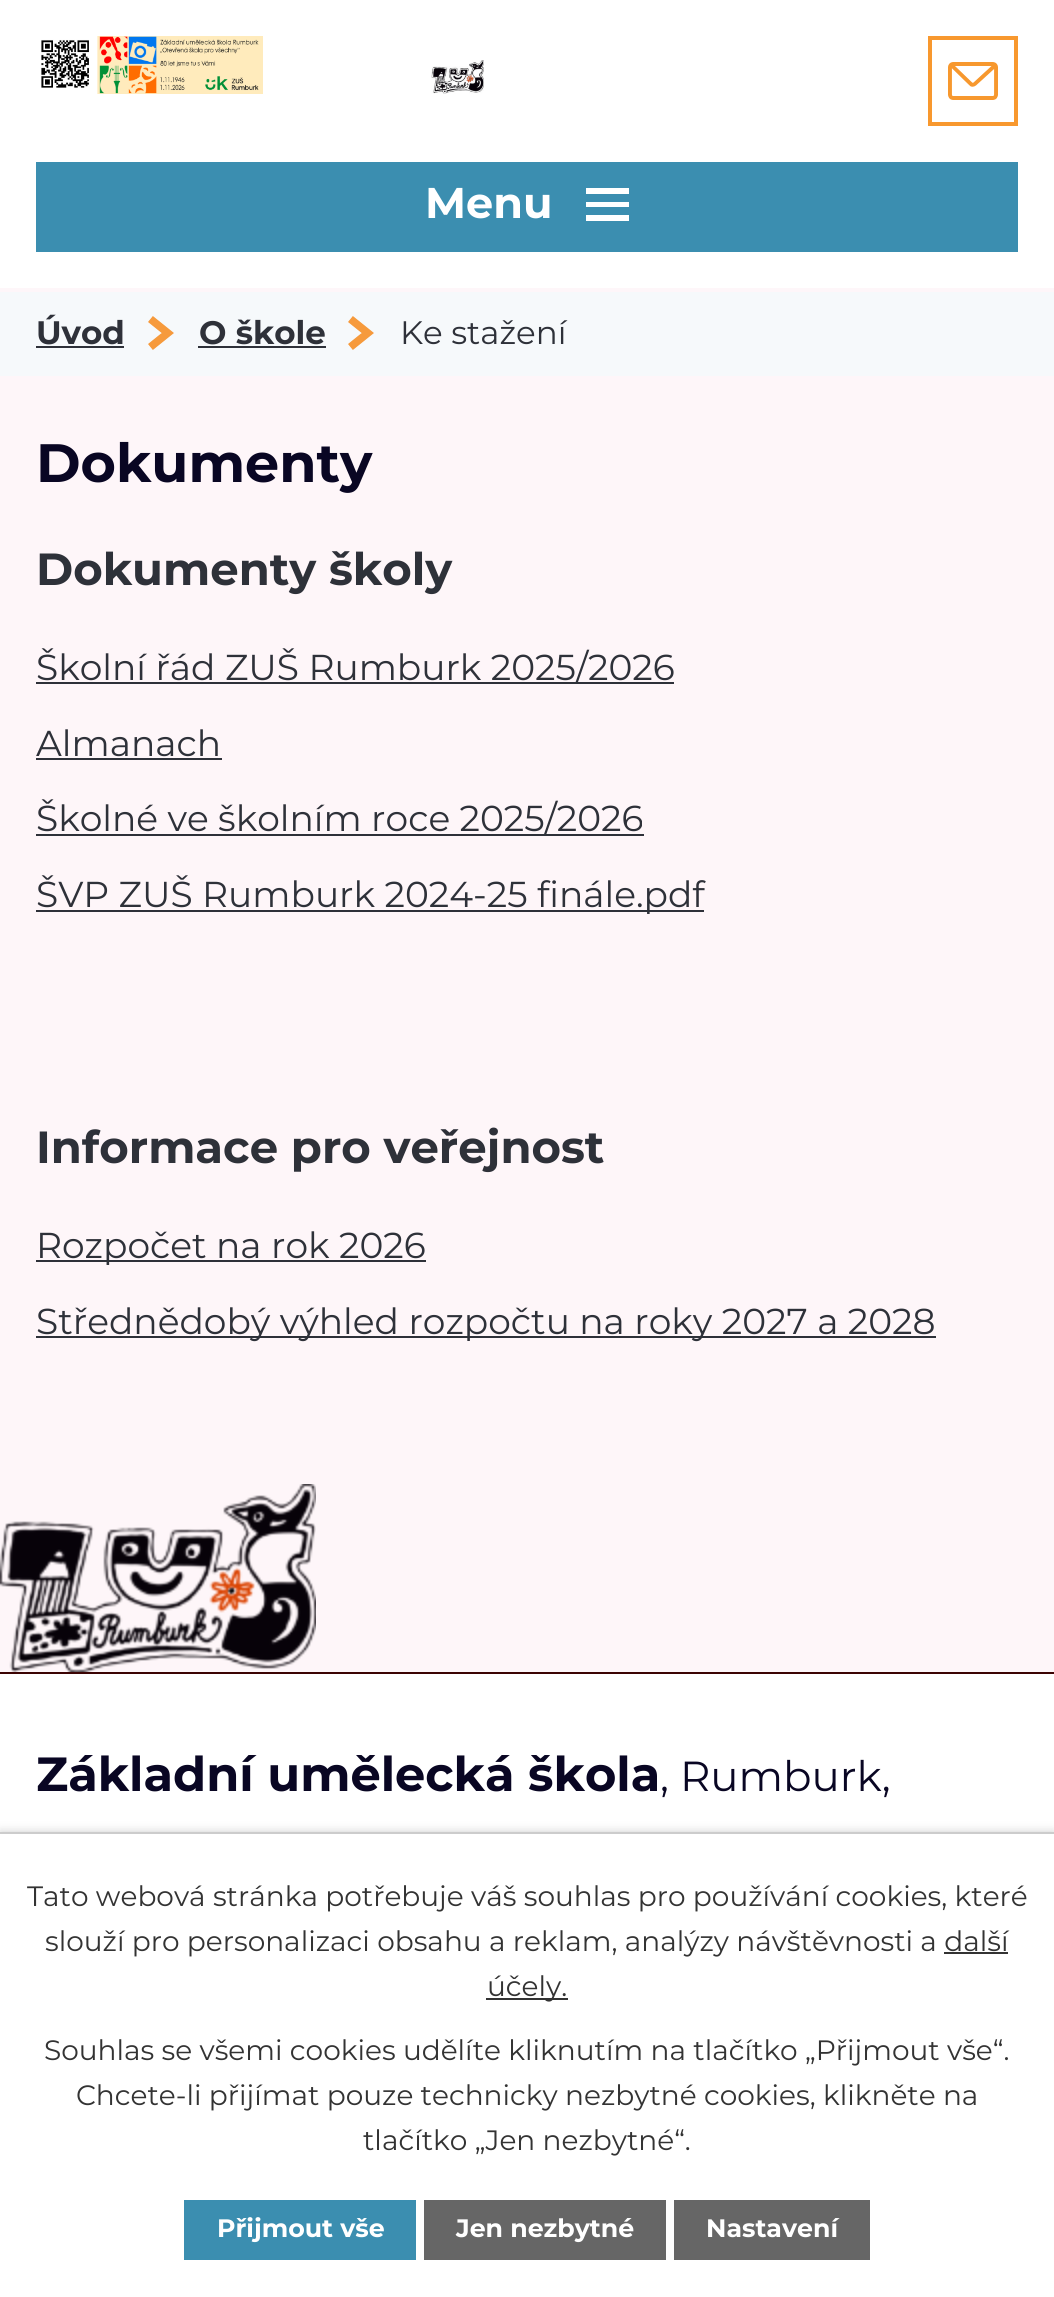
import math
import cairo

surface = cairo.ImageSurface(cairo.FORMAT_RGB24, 1054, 2297)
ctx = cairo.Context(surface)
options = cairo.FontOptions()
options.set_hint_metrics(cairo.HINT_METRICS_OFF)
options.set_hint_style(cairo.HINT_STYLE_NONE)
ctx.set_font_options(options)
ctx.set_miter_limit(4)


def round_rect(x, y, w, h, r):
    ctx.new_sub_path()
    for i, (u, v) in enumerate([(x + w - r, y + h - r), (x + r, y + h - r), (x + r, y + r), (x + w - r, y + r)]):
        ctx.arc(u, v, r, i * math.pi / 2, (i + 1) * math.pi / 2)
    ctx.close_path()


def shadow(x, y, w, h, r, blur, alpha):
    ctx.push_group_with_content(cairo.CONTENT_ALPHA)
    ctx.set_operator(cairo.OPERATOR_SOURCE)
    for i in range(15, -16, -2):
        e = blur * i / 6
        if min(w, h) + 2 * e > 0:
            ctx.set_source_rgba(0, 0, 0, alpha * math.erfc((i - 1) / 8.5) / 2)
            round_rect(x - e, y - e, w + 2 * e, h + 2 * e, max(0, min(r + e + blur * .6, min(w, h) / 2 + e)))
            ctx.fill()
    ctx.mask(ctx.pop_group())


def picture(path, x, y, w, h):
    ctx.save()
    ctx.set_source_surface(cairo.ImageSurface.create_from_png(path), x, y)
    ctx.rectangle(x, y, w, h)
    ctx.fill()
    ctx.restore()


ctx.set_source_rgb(0.996, 0.961, 0.976)
ctx.paint()
ctx.set_source_rgb(1, 1, 1)
ctx.rectangle(0, 0, 1054, 288)
ctx.fill()
picture("img1.png", 41, 36, 443, 58)
ctx.rectangle(930, 38, 86, 86)
ctx.set_source_rgb(0.969, 0.596, 0.18)
ctx.set_line_width(4)
ctx.stroke()
picture("img2.png", 948, 62, 50, 38)
ctx.set_source_rgb(0.231, 0.557, 0.69)
ctx.rectangle(36, 162, 982, 90)
ctx.fill()
ctx.select_font_face("Montserrat", cairo.FONT_SLANT_NORMAL, cairo.FONT_WEIGHT_BOLD)
ctx.set_font_size(43)
ctx.set_source_rgb(1, 1, 1)
ctx.move_to(425, 218)
ctx.show_text("Menu")
ctx.new_path()
ctx.move_to(586, 221)
ctx.line_to(586, 215)
ctx.line_to(629, 215)
ctx.line_to(629, 221)
ctx.close_path()
ctx.move_to(586, 188)
ctx.line_to(629, 188)
ctx.line_to(629, 194)
ctx.line_to(586, 194)
ctx.close_path()
ctx.move_to(586, 207)
ctx.line_to(586, 202)
ctx.line_to(629, 202)
ctx.line_to(629, 207)
ctx.close_path()
ctx.fill()
ctx.set_source_rgb(0.961, 0.976, 0.984)
ctx.rectangle(0, 292, 1054, 84)
ctx.fill()
ctx.set_font_size(32.5)
ctx.set_source_rgb(0.18, 0.192, 0.224)
ctx.move_to(36, 344)
ctx.show_text("Úvod")
ctx.rectangle(36, 346, 88, 2)
ctx.fill()
picture("img3.png", 148, 316, 26, 34)
ctx.move_to(199, 344)
ctx.show_text("O škole")
ctx.rectangle(198, 346, 128, 2)
ctx.fill()
picture("img3.png", 348, 316, 26, 34)
ctx.select_font_face("Montserrat")
ctx.move_to(400, 344)
ctx.show_text("Ke stažení")
ctx.select_font_face("Montserrat", cairo.FONT_SLANT_NORMAL, cairo.FONT_WEIGHT_BOLD)
ctx.set_font_size(54)
ctx.set_source_rgb(0.039, 0.027, 0.137)
ctx.move_to(36, 482)
ctx.show_text("Dokumenty")
ctx.set_font_size(45)
ctx.set_source_rgb(0.18, 0.192, 0.224)
ctx.move_to(36, 585)
ctx.show_text("Dokumenty školy")
ctx.rectangle(36, 682, 638, 2)
ctx.fill()
ctx.select_font_face("Montserrat")
ctx.set_font_size(36)
ctx.move_to(36, 680)
ctx.show_text("Školní řád ZUŠ Rumburk 2025/2026")
ctx.move_to(36, 756)
ctx.show_text("Almanach")
ctx.rectangle(36, 758, 186, 2)
ctx.fill()
ctx.rectangle(36, 834, 608, 2)
ctx.fill()
ctx.move_to(36, 831)
ctx.show_text("Školné ve školním roce 2025/2026")
ctx.rectangle(36, 910, 668, 2)
ctx.fill()
ctx.move_to(36, 907)
ctx.show_text("ŠVP ZUŠ Rumburk 2024-25 finále.pdf")
ctx.select_font_face("Montserrat", cairo.FONT_SLANT_NORMAL, cairo.FONT_WEIGHT_BOLD)
ctx.set_font_size(45)
ctx.move_to(36, 1163)
ctx.show_text("Informace pro veřejnost")
ctx.rectangle(36, 1260, 390, 2)
ctx.fill()
ctx.select_font_face("Montserrat")
ctx.set_font_size(36)
ctx.move_to(36, 1258)
ctx.show_text("Rozpočet na rok 2026")
ctx.rectangle(36, 1336, 900, 2)
ctx.fill()
ctx.move_to(36, 1334)
ctx.show_text("Střednědobý výhled rozpočtu na roky 2027 a 2028")
picture("img4.png", 0, 1484, 316, 188)
ctx.set_source_rgb(1, 1, 1)
ctx.rectangle(0, 1674, 1054, 158)
ctx.fill()
ctx.set_source_rgb(0.231, 0.012, 0.012)
ctx.rectangle(0, 1672, 1054, 2)
ctx.fill()
ctx.select_font_face("Montserrat", cairo.FONT_SLANT_NORMAL, cairo.FONT_WEIGHT_BOLD)
ctx.set_font_size(47.9)
ctx.set_source_rgb(0.039, 0.027, 0.137)
ctx.move_to(36, 1791)
ctx.show_text("Základní umělecká škola")
ctx.select_font_face("Montserrat")
ctx.set_font_size(42)
ctx.move_to(660, 1791)
ctx.show_text(", Rumburk,")
ctx.set_source_rgb(0, 0, 0)
shadow(0, 1832, 1054, 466, 0, 5, 0.2)
ctx.set_source_rgb(1, 1, 1)
ctx.rectangle(0, 1834, 1054, 463)
ctx.fill()
ctx.set_source_rgb(0.8, 0.8, 0.8)
ctx.rectangle(0, 1832, 1054, 2)
ctx.fill()
ctx.set_font_size(28)
ctx.set_source_rgb(0.2, 0.2, 0.2)
ctx.move_to(27, 1906)
ctx.show_text("Tato webová stránka potřebuje váš souhlas pro používání cookies, které")
ctx.move_to(45, 1951)
ctx.show_text("slouží pro personalizaci obsahu a reklam, analýzy návštěvnosti a další")
ctx.rectangle(486, 1998, 82, 2)
ctx.fill()
ctx.move_to(487, 1996)
ctx.show_text("účely.")
ctx.rectangle(944, 1952, 64, 2)
ctx.fill()
ctx.move_to(44, 2060)
ctx.show_text("Souhlas se všemi cookies udělíte kliknutím na tlačítko „Přijmout vše“.")
ctx.move_to(76, 2105)
ctx.show_text("Chcete-li přijímat pouze technicky nezbytné cookies, klikněte na")
ctx.move_to(363, 2150)
ctx.show_text("tlačítko „Jen nezbytné“.")
ctx.set_source_rgb(0.231, 0.557, 0.69)
ctx.rectangle(184, 2200, 232, 60)
ctx.fill()
ctx.select_font_face("Montserrat", cairo.FONT_SLANT_NORMAL, cairo.FONT_WEIGHT_BOLD)
ctx.set_font_size(25.25)
ctx.set_source_rgb(1, 1, 1)
ctx.move_to(217, 2237)
ctx.show_text("Přijmout vše")
ctx.set_source_rgb(0.4, 0.4, 0.4)
ctx.rectangle(424, 2200, 242, 60)
ctx.fill()
ctx.set_source_rgb(1, 1, 1)
ctx.move_to(456, 2237)
ctx.show_text("Jen nezbytné")
ctx.set_source_rgb(0.4, 0.4, 0.4)
ctx.rectangle(674, 2200, 196, 60)
ctx.fill()
ctx.set_source_rgb(1, 1, 1)
ctx.move_to(706, 2237)
ctx.show_text("Nastavení")
surface.write_to_png("page.png")
